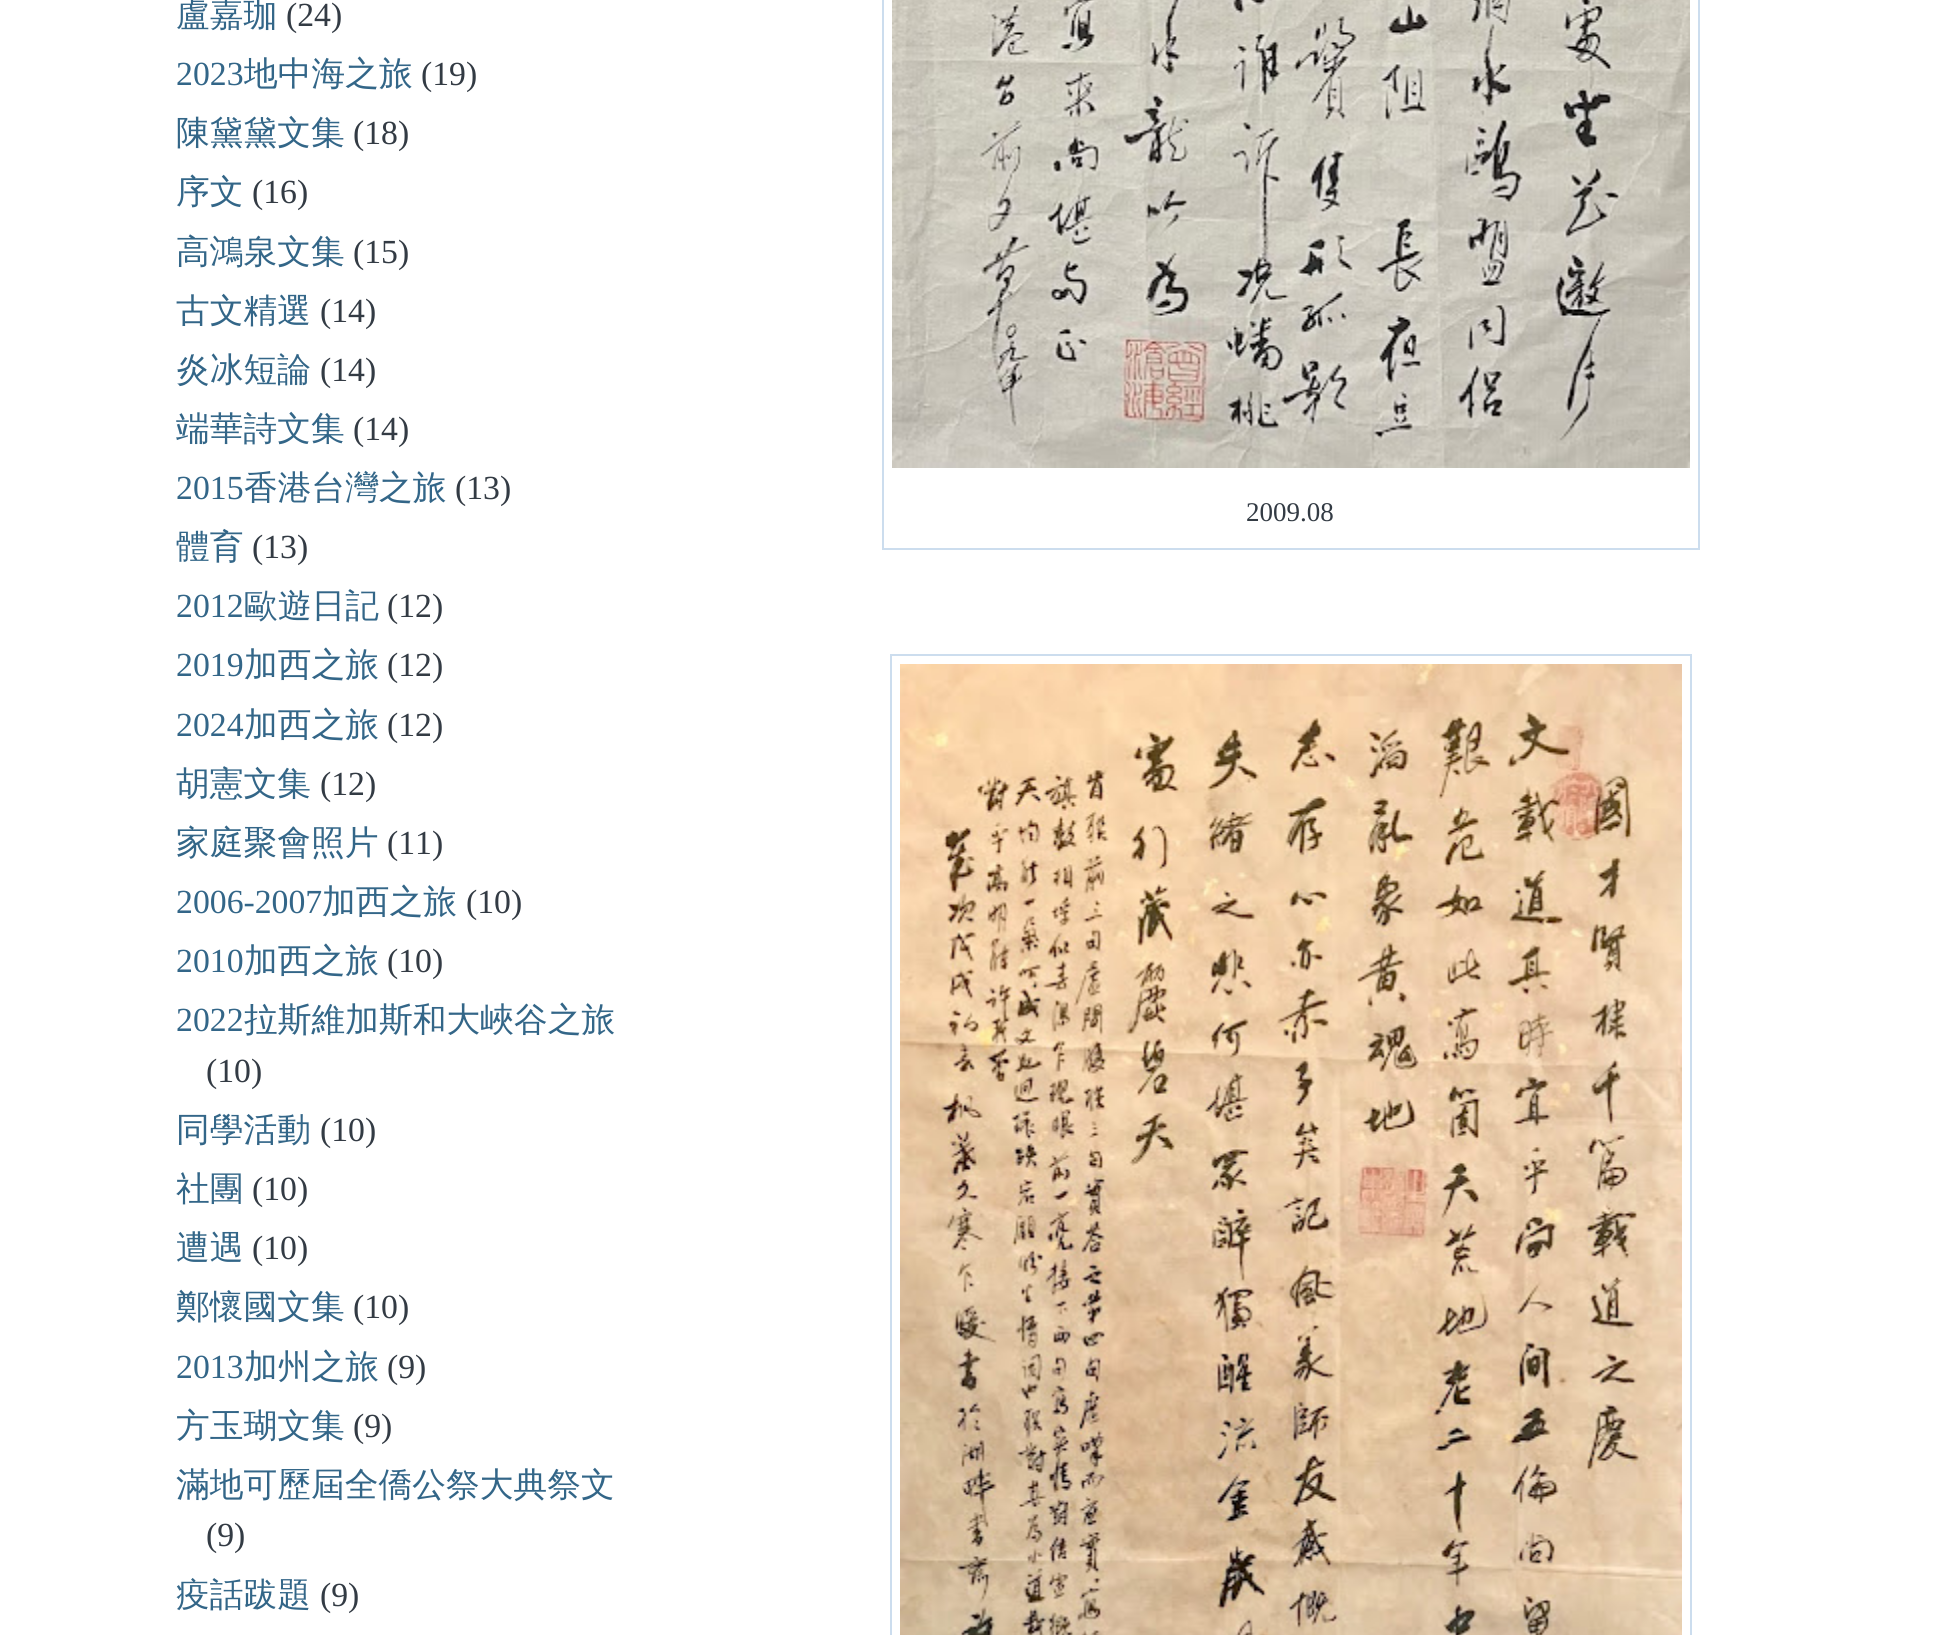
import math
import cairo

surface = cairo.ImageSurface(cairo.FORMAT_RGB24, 1947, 1635)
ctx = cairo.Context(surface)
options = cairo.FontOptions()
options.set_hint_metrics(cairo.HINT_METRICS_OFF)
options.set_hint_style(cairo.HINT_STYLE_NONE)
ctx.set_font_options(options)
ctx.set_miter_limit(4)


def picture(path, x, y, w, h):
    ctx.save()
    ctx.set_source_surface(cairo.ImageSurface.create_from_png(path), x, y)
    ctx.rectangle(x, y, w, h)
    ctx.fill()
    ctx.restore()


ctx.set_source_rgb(1, 1, 1)
ctx.paint()
ctx.select_font_face("WenQuanYi Zen Hei Medium")
ctx.set_font_size(33.75)
ctx.set_source_rgb(0.2, 0.4, 0.533)
ctx.move_to(176, 26)
ctx.show_text("盧嘉珈")
ctx.select_font_face("Liberation Serif")
ctx.set_source_rgb(0.2, 0.231, 0.267)
ctx.move_to(286, 26)
ctx.show_text("(24)")
ctx.set_source_rgb(0.2, 0.4, 0.533)
ctx.move_to(176, 85)
ctx.show_text("2023")
ctx.select_font_face("WenQuanYi Zen Hei Medium")
ctx.move_to(244, 85)
ctx.show_text("地中海之旅")
ctx.select_font_face("Liberation Serif")
ctx.set_source_rgb(0.2, 0.231, 0.267)
ctx.move_to(421, 85)
ctx.show_text("(19)")
ctx.select_font_face("WenQuanYi Zen Hei Medium")
ctx.set_source_rgb(0.2, 0.4, 0.533)
ctx.move_to(176, 144)
ctx.show_text("陳黛黛文集")
ctx.select_font_face("Liberation Serif")
ctx.set_source_rgb(0.2, 0.231, 0.267)
ctx.move_to(353, 144)
ctx.show_text("(18)")
ctx.select_font_face("WenQuanYi Zen Hei Medium")
ctx.set_source_rgb(0.2, 0.4, 0.533)
ctx.move_to(176, 203)
ctx.show_text("序文")
ctx.select_font_face("Liberation Serif")
ctx.set_source_rgb(0.2, 0.231, 0.267)
ctx.move_to(252, 203)
ctx.show_text("(16)")
ctx.select_font_face("WenQuanYi Zen Hei Medium")
ctx.set_source_rgb(0.2, 0.4, 0.533)
ctx.move_to(176, 263)
ctx.show_text("高鴻泉文集")
ctx.select_font_face("Liberation Serif")
ctx.set_source_rgb(0.2, 0.231, 0.267)
ctx.move_to(353, 263)
ctx.show_text("(15)")
ctx.select_font_face("WenQuanYi Zen Hei Medium")
ctx.set_source_rgb(0.2, 0.4, 0.533)
ctx.move_to(176, 322)
ctx.show_text("古文精選")
ctx.select_font_face("Liberation Serif")
ctx.set_source_rgb(0.2, 0.231, 0.267)
ctx.move_to(320, 322)
ctx.show_text("(14)")
ctx.select_font_face("WenQuanYi Zen Hei Medium")
ctx.set_source_rgb(0.2, 0.4, 0.533)
ctx.move_to(176, 381)
ctx.show_text("炎冰短論")
ctx.select_font_face("Liberation Serif")
ctx.set_source_rgb(0.2, 0.231, 0.267)
ctx.move_to(320, 381)
ctx.show_text("(14)")
ctx.select_font_face("WenQuanYi Zen Hei Medium")
ctx.set_source_rgb(0.2, 0.4, 0.533)
ctx.move_to(176, 440)
ctx.show_text("端華詩文集")
ctx.select_font_face("Liberation Serif")
ctx.set_source_rgb(0.2, 0.231, 0.267)
ctx.move_to(353, 440)
ctx.show_text("(14)")
ctx.set_source_rgb(0.2, 0.4, 0.533)
ctx.move_to(176, 499)
ctx.show_text("2015")
ctx.select_font_face("WenQuanYi Zen Hei Medium")
ctx.move_to(244, 499)
ctx.show_text("香港台灣之旅")
ctx.select_font_face("Liberation Serif")
ctx.set_source_rgb(0.2, 0.231, 0.267)
ctx.move_to(455, 499)
ctx.show_text("(13)")
ctx.select_font_face("WenQuanYi Zen Hei Medium")
ctx.set_source_rgb(0.2, 0.4, 0.533)
ctx.move_to(176, 558)
ctx.show_text("體育")
ctx.select_font_face("Liberation Serif")
ctx.set_source_rgb(0.2, 0.231, 0.267)
ctx.move_to(252, 558)
ctx.show_text("(13)")
ctx.set_source_rgb(0.2, 0.4, 0.533)
ctx.move_to(176, 617)
ctx.show_text("2012")
ctx.select_font_face("WenQuanYi Zen Hei Medium")
ctx.move_to(244, 617)
ctx.show_text("歐遊日記")
ctx.select_font_face("Liberation Serif")
ctx.set_source_rgb(0.2, 0.231, 0.267)
ctx.move_to(387, 617)
ctx.show_text("(12)")
ctx.set_source_rgb(0.2, 0.4, 0.533)
ctx.move_to(176, 676)
ctx.show_text("2019")
ctx.select_font_face("WenQuanYi Zen Hei Medium")
ctx.move_to(244, 676)
ctx.show_text("加西之旅")
ctx.select_font_face("Liberation Serif")
ctx.set_source_rgb(0.2, 0.231, 0.267)
ctx.move_to(387, 676)
ctx.show_text("(12)")
ctx.set_source_rgb(0.2, 0.4, 0.533)
ctx.move_to(176, 736)
ctx.show_text("2024")
ctx.select_font_face("WenQuanYi Zen Hei Medium")
ctx.move_to(244, 736)
ctx.show_text("加西之旅")
ctx.select_font_face("Liberation Serif")
ctx.set_source_rgb(0.2, 0.231, 0.267)
ctx.move_to(387, 736)
ctx.show_text("(12)")
ctx.select_font_face("WenQuanYi Zen Hei Medium")
ctx.set_source_rgb(0.2, 0.4, 0.533)
ctx.move_to(176, 795)
ctx.show_text("胡憲文集")
ctx.select_font_face("Liberation Serif")
ctx.set_source_rgb(0.2, 0.231, 0.267)
ctx.move_to(320, 795)
ctx.show_text("(12)")
ctx.select_font_face("WenQuanYi Zen Hei Medium")
ctx.set_source_rgb(0.2, 0.4, 0.533)
ctx.move_to(176, 854)
ctx.show_text("家庭聚會照片")
ctx.select_font_face("Liberation Serif")
ctx.set_source_rgb(0.2, 0.231, 0.267)
ctx.move_to(387, 854)
ctx.show_text("(11)")
ctx.set_source_rgb(0.2, 0.4, 0.533)
ctx.move_to(176, 913)
ctx.show_text("2006-2007")
ctx.select_font_face("WenQuanYi Zen Hei Medium")
ctx.move_to(322, 913)
ctx.show_text("加西之旅")
ctx.select_font_face("Liberation Serif")
ctx.set_source_rgb(0.2, 0.231, 0.267)
ctx.move_to(466, 913)
ctx.show_text("(10)")
ctx.set_source_rgb(0.2, 0.4, 0.533)
ctx.move_to(176, 972)
ctx.show_text("2010")
ctx.select_font_face("WenQuanYi Zen Hei Medium")
ctx.move_to(244, 972)
ctx.show_text("加西之旅")
ctx.select_font_face("Liberation Serif")
ctx.set_source_rgb(0.2, 0.231, 0.267)
ctx.move_to(387, 972)
ctx.show_text("(10)")
ctx.set_source_rgb(0.2, 0.4, 0.533)
ctx.move_to(176, 1031)
ctx.show_text("2022")
ctx.select_font_face("WenQuanYi Zen Hei Medium")
ctx.move_to(244, 1031)
ctx.show_text("拉斯維加斯和大峽谷之旅")
ctx.select_font_face("Liberation Serif")
ctx.set_source_rgb(0.2, 0.231, 0.267)
ctx.move_to(206, 1082)
ctx.show_text("(10)")
ctx.select_font_face("WenQuanYi Zen Hei Medium")
ctx.set_source_rgb(0.2, 0.4, 0.533)
ctx.move_to(176, 1141)
ctx.show_text("同學活動")
ctx.select_font_face("Liberation Serif")
ctx.set_source_rgb(0.2, 0.231, 0.267)
ctx.move_to(320, 1141)
ctx.show_text("(10)")
ctx.select_font_face("WenQuanYi Zen Hei Medium")
ctx.set_source_rgb(0.2, 0.4, 0.533)
ctx.move_to(176, 1200)
ctx.show_text("社團")
ctx.select_font_face("Liberation Serif")
ctx.set_source_rgb(0.2, 0.231, 0.267)
ctx.move_to(252, 1200)
ctx.show_text("(10)")
ctx.select_font_face("WenQuanYi Zen Hei Medium")
ctx.set_source_rgb(0.2, 0.4, 0.533)
ctx.move_to(176, 1259)
ctx.show_text("遭遇")
ctx.select_font_face("Liberation Serif")
ctx.set_source_rgb(0.2, 0.231, 0.267)
ctx.move_to(252, 1259)
ctx.show_text("(10)")
ctx.select_font_face("WenQuanYi Zen Hei Medium")
ctx.set_source_rgb(0.2, 0.4, 0.533)
ctx.move_to(176, 1318)
ctx.show_text("鄭懷國文集")
ctx.select_font_face("Liberation Serif")
ctx.set_source_rgb(0.2, 0.231, 0.267)
ctx.move_to(353, 1318)
ctx.show_text("(10)")
ctx.set_source_rgb(0.2, 0.4, 0.533)
ctx.move_to(176, 1378)
ctx.show_text("2013")
ctx.select_font_face("WenQuanYi Zen Hei Medium")
ctx.move_to(244, 1378)
ctx.show_text("加州之旅")
ctx.select_font_face("Liberation Serif")
ctx.set_source_rgb(0.2, 0.231, 0.267)
ctx.move_to(387, 1378)
ctx.show_text("(9)")
ctx.select_font_face("WenQuanYi Zen Hei Medium")
ctx.set_source_rgb(0.2, 0.4, 0.533)
ctx.move_to(176, 1437)
ctx.show_text("方玉瑚文集")
ctx.select_font_face("Liberation Serif")
ctx.set_source_rgb(0.2, 0.231, 0.267)
ctx.move_to(353, 1437)
ctx.show_text("(9)")
ctx.select_font_face("WenQuanYi Zen Hei Medium")
ctx.set_source_rgb(0.2, 0.4, 0.533)
ctx.move_to(176, 1496)
ctx.show_text("滿地可歷屆全僑公祭大典祭文")
ctx.select_font_face("Liberation Serif")
ctx.set_source_rgb(0.2, 0.231, 0.267)
ctx.move_to(206, 1546)
ctx.show_text("(9)")
ctx.select_font_face("WenQuanYi Zen Hei Medium")
ctx.set_source_rgb(0.2, 0.4, 0.533)
ctx.move_to(176, 1606)
ctx.show_text("疫話跋題")
ctx.select_font_face("Liberation Serif")
ctx.set_source_rgb(0.2, 0.231, 0.267)
ctx.move_to(320, 1606)
ctx.show_text("(9)")
ctx.rectangle(883, -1, 816, 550)
ctx.set_source_rgb(0.8, 0.867, 0.933)
ctx.stroke()
picture("img1.png", 892, 0, 798, 468)
ctx.set_font_size(27)
ctx.set_source_rgb(0.2, 0.231, 0.267)
ctx.move_to(1246, 521)
ctx.show_text("2009.08")
ctx.rectangle(891, 655, 800, 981)
ctx.set_source_rgb(0.8, 0.867, 0.933)
ctx.stroke()
picture("img2.png", 900, 664, 782, 971)
surface.write_to_png("page.png")
